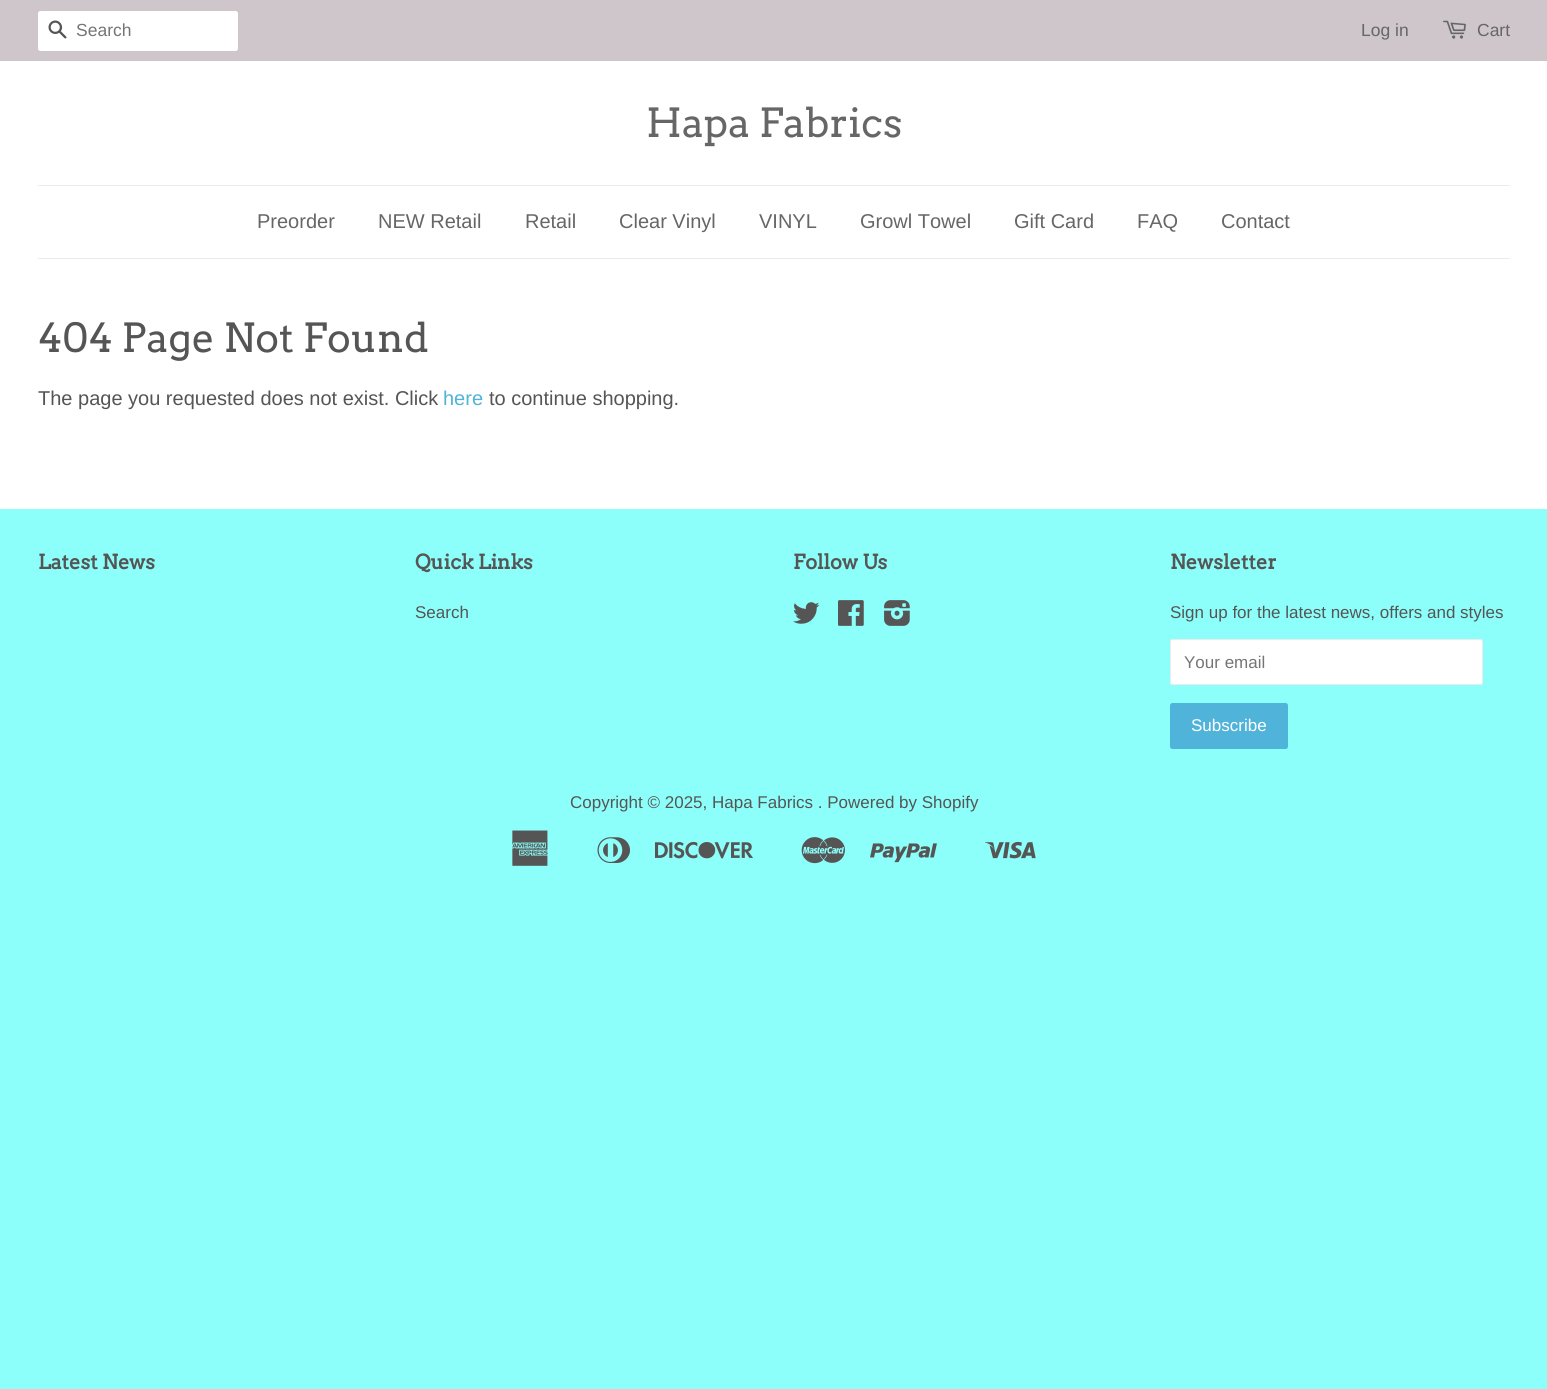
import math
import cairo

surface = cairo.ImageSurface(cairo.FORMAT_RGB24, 1547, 1389)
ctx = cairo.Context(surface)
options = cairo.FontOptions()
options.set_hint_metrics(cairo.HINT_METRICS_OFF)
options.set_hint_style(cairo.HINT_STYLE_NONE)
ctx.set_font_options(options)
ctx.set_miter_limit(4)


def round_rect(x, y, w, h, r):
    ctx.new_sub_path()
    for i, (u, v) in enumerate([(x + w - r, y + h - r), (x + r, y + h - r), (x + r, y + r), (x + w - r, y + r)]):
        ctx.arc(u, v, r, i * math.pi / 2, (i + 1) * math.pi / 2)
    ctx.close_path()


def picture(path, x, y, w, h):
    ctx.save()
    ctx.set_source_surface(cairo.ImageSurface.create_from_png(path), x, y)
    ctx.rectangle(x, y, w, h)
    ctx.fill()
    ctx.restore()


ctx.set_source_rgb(0.549, 1, 0.98)
ctx.paint()
ctx.set_source_rgb(1, 1, 1)
ctx.rectangle(0, 61, 1547, 448)
ctx.fill()
ctx.set_source_rgb(0.808, 0.776, 0.792)
ctx.rectangle(0, 0, 1547, 61)
ctx.fill()
ctx.set_source_rgb(1, 1, 1)
round_rect(38, 11, 200, 40, 2.5)
ctx.fill()
picture("img1.png", 48, 20, 19, 19)
ctx.select_font_face("Liberation Sans")
ctx.set_font_size(17.5)
ctx.set_source_rgb(0.459, 0.459, 0.459)
ctx.move_to(76, 36)
ctx.show_text("Search")
ctx.set_source_rgb(0.4, 0.4, 0.4)
ctx.move_to(1361, 36)
ctx.show_text("Log in")
picture("img2.png", 1443, 20, 23, 19)
ctx.move_to(1477, 36)
ctx.show_text("Cart")
ctx.select_font_face("Arvo")
ctx.set_font_size(40)
ctx.move_to(646, 137)
ctx.show_text("Hapa Fabrics")
ctx.set_source_rgb(0.929, 0.918, 0.918)
ctx.rectangle(38, 185, 1472, 1)
ctx.fill()
ctx.rectangle(38, 258, 1472, 1)
ctx.fill()
ctx.select_font_face("Liberation Sans")
ctx.set_font_size(20)
ctx.set_source_rgb(0.4, 0.4, 0.4)
ctx.move_to(257, 228)
ctx.show_text("Preorder")
ctx.move_to(378, 228)
ctx.show_text("NEW Retail")
ctx.move_to(525, 228)
ctx.show_text("Retail")
ctx.move_to(619, 228)
ctx.show_text("Clear Vinyl")
ctx.move_to(759, 228)
ctx.show_text("VINYL")
ctx.move_to(860, 228)
ctx.show_text("Growl Towel")
ctx.move_to(1014, 228)
ctx.show_text("Gift Card")
ctx.move_to(1137, 228)
ctx.show_text("FAQ")
ctx.move_to(1221, 228)
ctx.show_text("Contact")
ctx.select_font_face("Arvo")
ctx.set_font_size(40)
ctx.set_source_rgb(0.333, 0.333, 0.333)
ctx.move_to(38, 352)
ctx.show_text("404 Page Not Found")
ctx.select_font_face("Liberation Sans")
ctx.set_font_size(20)
ctx.move_to(38, 405)
ctx.show_text("The page you requested does not exist. Click")
ctx.set_source_rgb(0.314, 0.702, 0.855)
ctx.move_to(443, 405)
ctx.show_text("here")
ctx.set_source_rgb(0.333, 0.333, 0.333)
ctx.move_to(489, 405)
ctx.show_text("to continue shopping.")
ctx.select_font_face("Arvo", cairo.FONT_SLANT_NORMAL, cairo.FONT_WEIGHT_BOLD)
ctx.move_to(38, 569)
ctx.show_text("Latest News")
ctx.move_to(415, 569)
ctx.show_text("Quick Links")
ctx.select_font_face("Liberation Sans")
ctx.set_font_size(17)
ctx.move_to(415, 618)
ctx.show_text("Search")
ctx.select_font_face("Arvo", cairo.FONT_SLANT_NORMAL, cairo.FONT_WEIGHT_BOLD)
ctx.set_font_size(20)
ctx.move_to(793, 569)
ctx.show_text("Follow Us")
picture("img3.png", 793, 602, 27, 22)
picture("img4.png", 838, 600, 26, 26)
picture("img5.png", 884, 600, 26, 26)
ctx.move_to(1170, 569)
ctx.show_text("Newsletter")
ctx.select_font_face("Liberation Sans")
ctx.set_font_size(17)
ctx.move_to(1170, 618)
ctx.show_text("Sign up for the latest news, offers and styles")
ctx.set_source_rgb(1, 1, 1)
round_rect(1170.5, 639.5, 312, 45, 2)
ctx.fill_preserve()
ctx.set_source_rgb(0.929, 0.918, 0.918)
ctx.set_line_width(1)
ctx.stroke()
ctx.set_source_rgb(0.459, 0.459, 0.459)
ctx.move_to(1184, 668)
ctx.show_text("Your email")
ctx.set_source_rgb(0.314, 0.702, 0.855)
round_rect(1170, 703, 118, 46, 2.5)
ctx.fill()
ctx.set_source_rgb(1, 1, 1)
ctx.move_to(1191, 731)
ctx.show_text("Subscribe")
ctx.set_source_rgb(0.333, 0.333, 0.333)
ctx.move_to(570, 808)
ctx.show_text("Copyright © 2025, Hapa Fabrics . Powered by Shopify")
picture("img6.png", 512, 830, 36, 36)
picture("img7.png", 597, 837, 33, 26)
picture("img8.png", 655, 841, 98, 18)
picture("img9.png", 801, 837, 44, 27)
picture("img10.png", 870, 843, 67, 20)
picture("img11.png", 985, 841, 51, 18)
surface.write_to_png("page.png")
